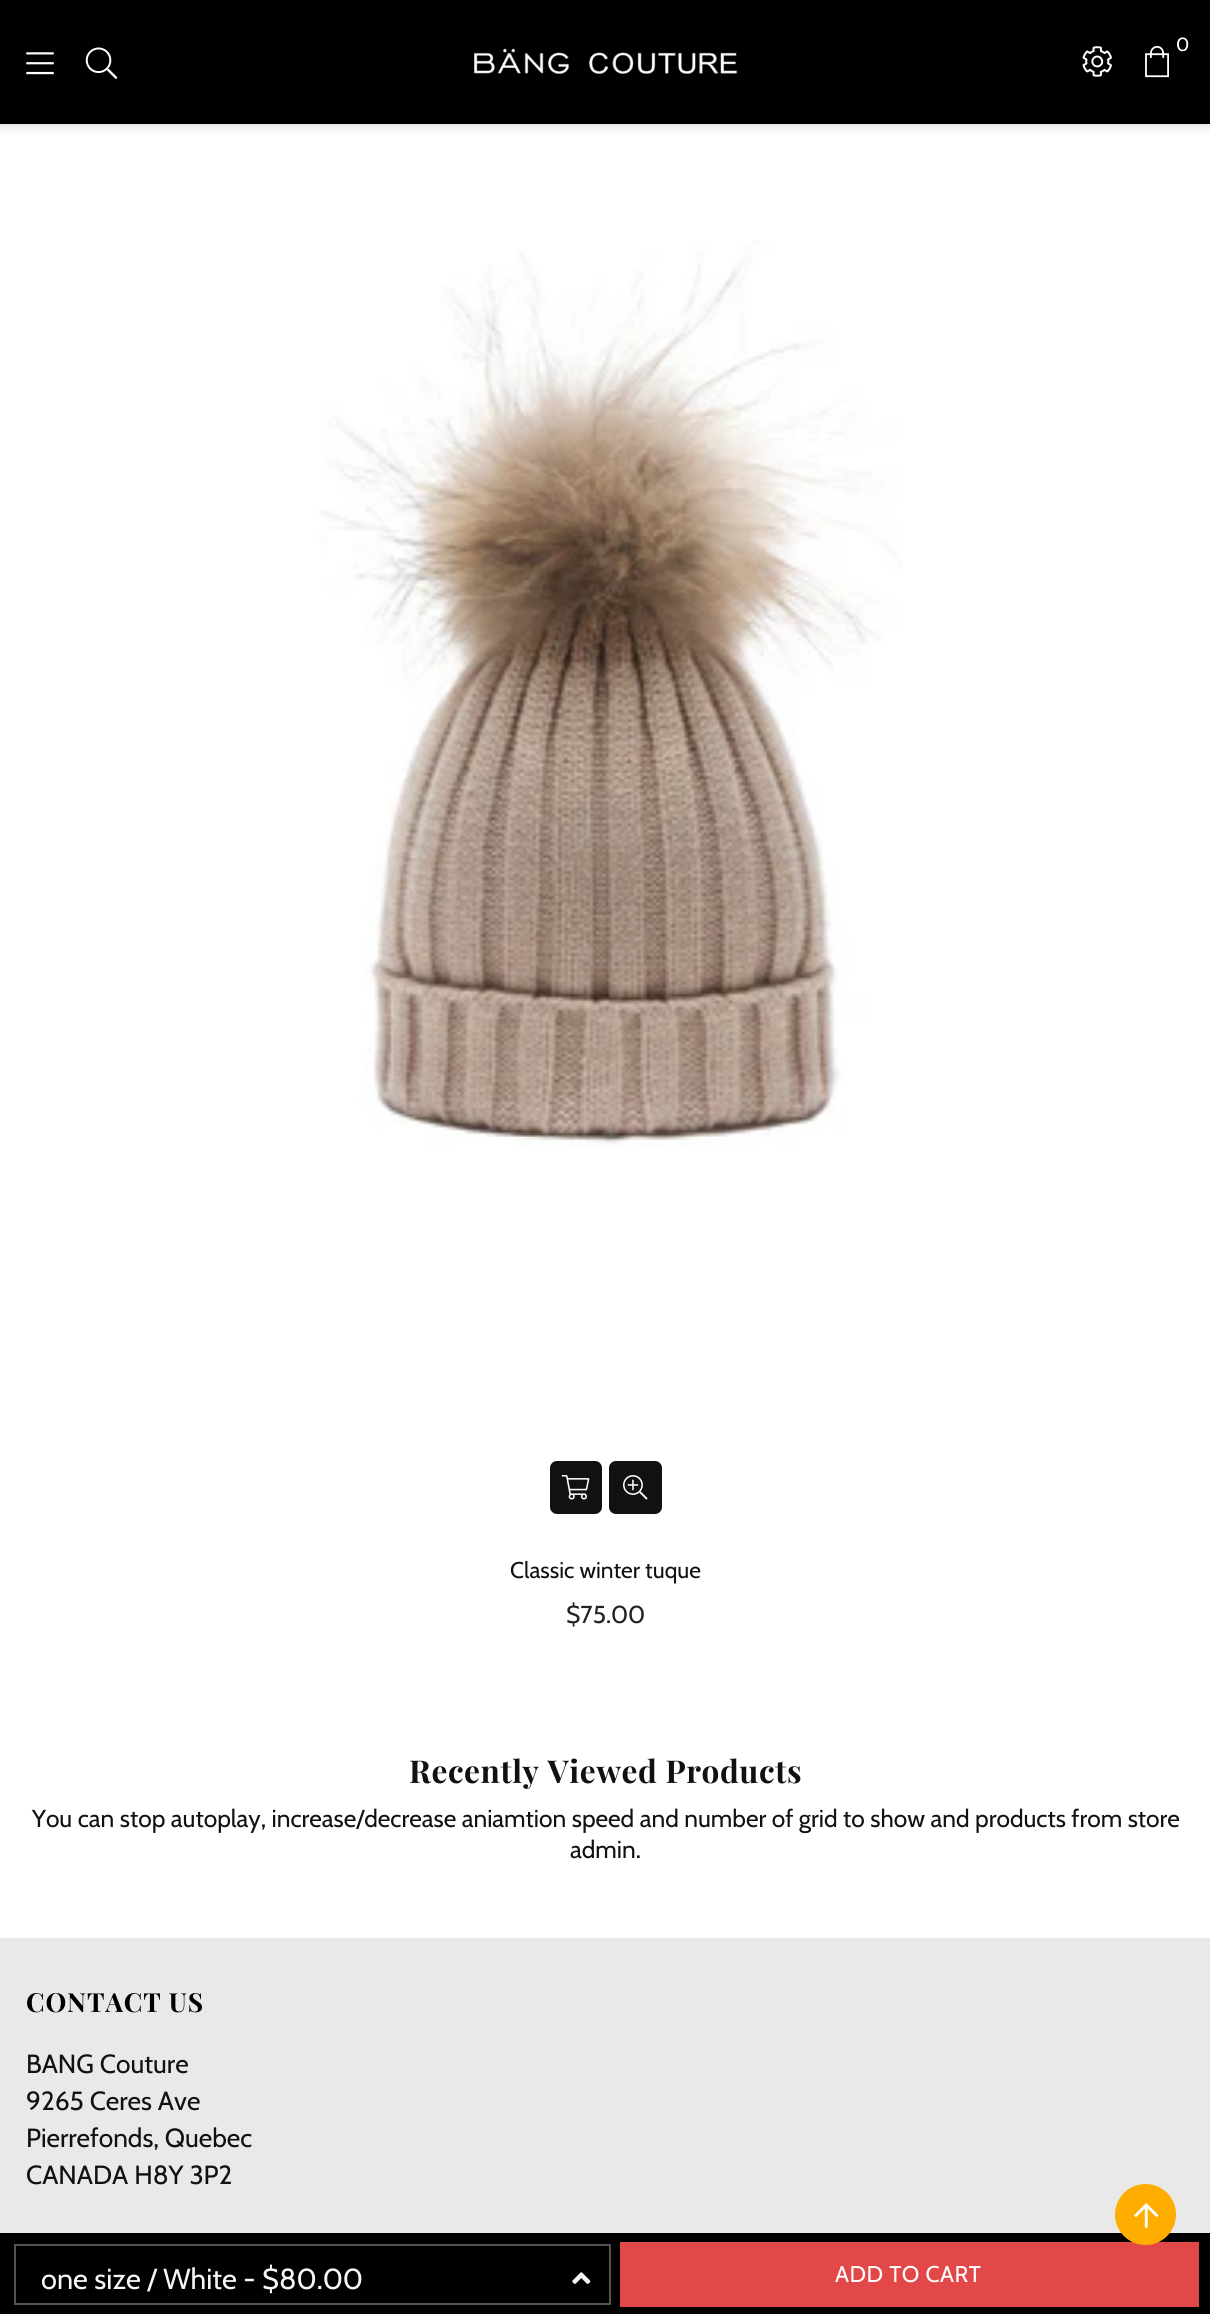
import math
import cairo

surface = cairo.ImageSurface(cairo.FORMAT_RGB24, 1210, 2314)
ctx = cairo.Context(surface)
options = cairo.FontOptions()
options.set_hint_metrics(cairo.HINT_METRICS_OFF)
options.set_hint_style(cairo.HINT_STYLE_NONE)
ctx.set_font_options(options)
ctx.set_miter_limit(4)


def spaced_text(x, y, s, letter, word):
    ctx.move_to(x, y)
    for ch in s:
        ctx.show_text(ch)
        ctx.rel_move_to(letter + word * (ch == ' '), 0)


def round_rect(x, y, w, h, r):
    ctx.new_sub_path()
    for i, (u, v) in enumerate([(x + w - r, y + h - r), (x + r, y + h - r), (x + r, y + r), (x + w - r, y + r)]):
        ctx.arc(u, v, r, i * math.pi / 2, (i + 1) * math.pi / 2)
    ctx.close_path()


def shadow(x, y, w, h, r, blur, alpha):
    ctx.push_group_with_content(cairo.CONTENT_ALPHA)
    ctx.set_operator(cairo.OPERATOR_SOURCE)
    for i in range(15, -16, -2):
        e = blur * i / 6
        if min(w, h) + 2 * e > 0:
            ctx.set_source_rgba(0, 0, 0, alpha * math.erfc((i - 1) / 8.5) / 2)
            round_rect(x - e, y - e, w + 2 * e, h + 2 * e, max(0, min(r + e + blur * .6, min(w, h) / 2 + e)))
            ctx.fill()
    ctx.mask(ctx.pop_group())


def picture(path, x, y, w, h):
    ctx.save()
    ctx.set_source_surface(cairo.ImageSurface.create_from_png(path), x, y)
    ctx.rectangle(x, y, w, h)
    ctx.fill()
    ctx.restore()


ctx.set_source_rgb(1, 1, 1)
ctx.paint()
ctx.set_source_rgb(0, 0, 0)
shadow(0, 0, 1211, 124, 0, 6, 0.2)
ctx.set_source_rgb(0, 0, 0)
ctx.rectangle(0, 0, 1210, 124)
ctx.fill()
picture("img1.png", 1145, 45, 24, 33)
ctx.select_font_face("Cabin")
ctx.set_font_size(19)
ctx.set_source_rgb(1, 1, 1)
ctx.move_to(1176, 51)
ctx.show_text("0")
picture("img2.png", 1082, 46, 30, 31)
picture("img3.png", 26, 52, 28, 23)
picture("img4.png", 85, 47, 33, 32)
picture("img5.png", 474, 48, 263, 26)
picture("img6.png", 319, 240, 583, 908)
ctx.set_source_rgb(0.067, 0.067, 0.067)
round_rect(550, 1461, 52, 53, 7)
ctx.fill()
picture("img7.png", 561, 1475, 29, 25)
round_rect(609, 1461, 53, 53, 7)
ctx.fill()
picture("img8.png", 623, 1475, 25, 25)
ctx.set_font_size(22.75)
ctx.move_to(510, 1578)
ctx.show_text("Classic winter tuque")
ctx.set_font_size(24.5)
ctx.set_source_rgb(0.133, 0.133, 0.133)
ctx.move_to(566, 1623)
ctx.show_text("$75.00")
ctx.select_font_face("Playfair Display", cairo.FONT_SLANT_NORMAL, cairo.FONT_WEIGHT_BOLD)
ctx.set_font_size(31.5)
ctx.set_source_rgb(0.067, 0.067, 0.067)
spaced_text(409, 1783, "Recently Viewed Products", 0.6, 0)
ctx.select_font_face("Cabin")
ctx.set_font_size(24.5)
ctx.move_to(32, 1827)
ctx.show_text("You can stop autoplay, increase/decrease aniamtion speed and number of grid to show and products from store")
ctx.move_to(570, 1858)
ctx.show_text("admin.")
ctx.set_source_rgb(0, 0, 0)
ctx.rectangle(0, 2233, 1210, 81)
ctx.fill()
ctx.rectangle(15, 2245, 595, 59)
ctx.set_source_rgb(0.325, 0.325, 0.325)
ctx.stroke()
ctx.set_font_size(28.9)
ctx.set_source_rgb(0.961, 0.961, 0.961)
ctx.move_to(41, 2289)
ctx.show_text("one size / White - $80.00")
picture("img9.png", 572, 2272, 19, 12)
ctx.set_source_rgb(0.89, 0.282, 0.282)
ctx.rectangle(620, 2242, 579, 65)
ctx.fill()
ctx.set_font_size(22.75)
ctx.set_source_rgb(1, 1, 1)
spaced_text(835, 2282, "ADD TO CART", 0.5, 0)
ctx.set_source_rgb(0.914, 0.914, 0.914)
ctx.rectangle(0, 1938, 1210, 295)
ctx.fill()
ctx.select_font_face("Playfair Display", cairo.FONT_SLANT_NORMAL, cairo.FONT_WEIGHT_BOLD)
ctx.set_font_size(26.25)
ctx.set_source_rgb(0, 0, 0)
spaced_text(26, 2012, "CONTACT US", 0.9, 0)
ctx.select_font_face("Cabin")
ctx.set_source_rgb(0.067, 0.067, 0.067)
ctx.move_to(26, 2073)
ctx.show_text("BANG Couture")
ctx.move_to(26, 2110)
ctx.show_text("9265 Ceres Ave")
ctx.move_to(26, 2147)
ctx.show_text("Pierrefonds, Quebec")
ctx.move_to(26, 2184)
ctx.show_text("CANADA H8Y 3P2")
ctx.set_source_rgb(1, 0.678, 0)
ctx.new_path()
ctx.arc(1145.5, 2214.5, 30.5, 0, 2 * math.pi)
ctx.fill()
picture("img10.png", 1134, 2203, 25, 25)
surface.write_to_png("page.png")
